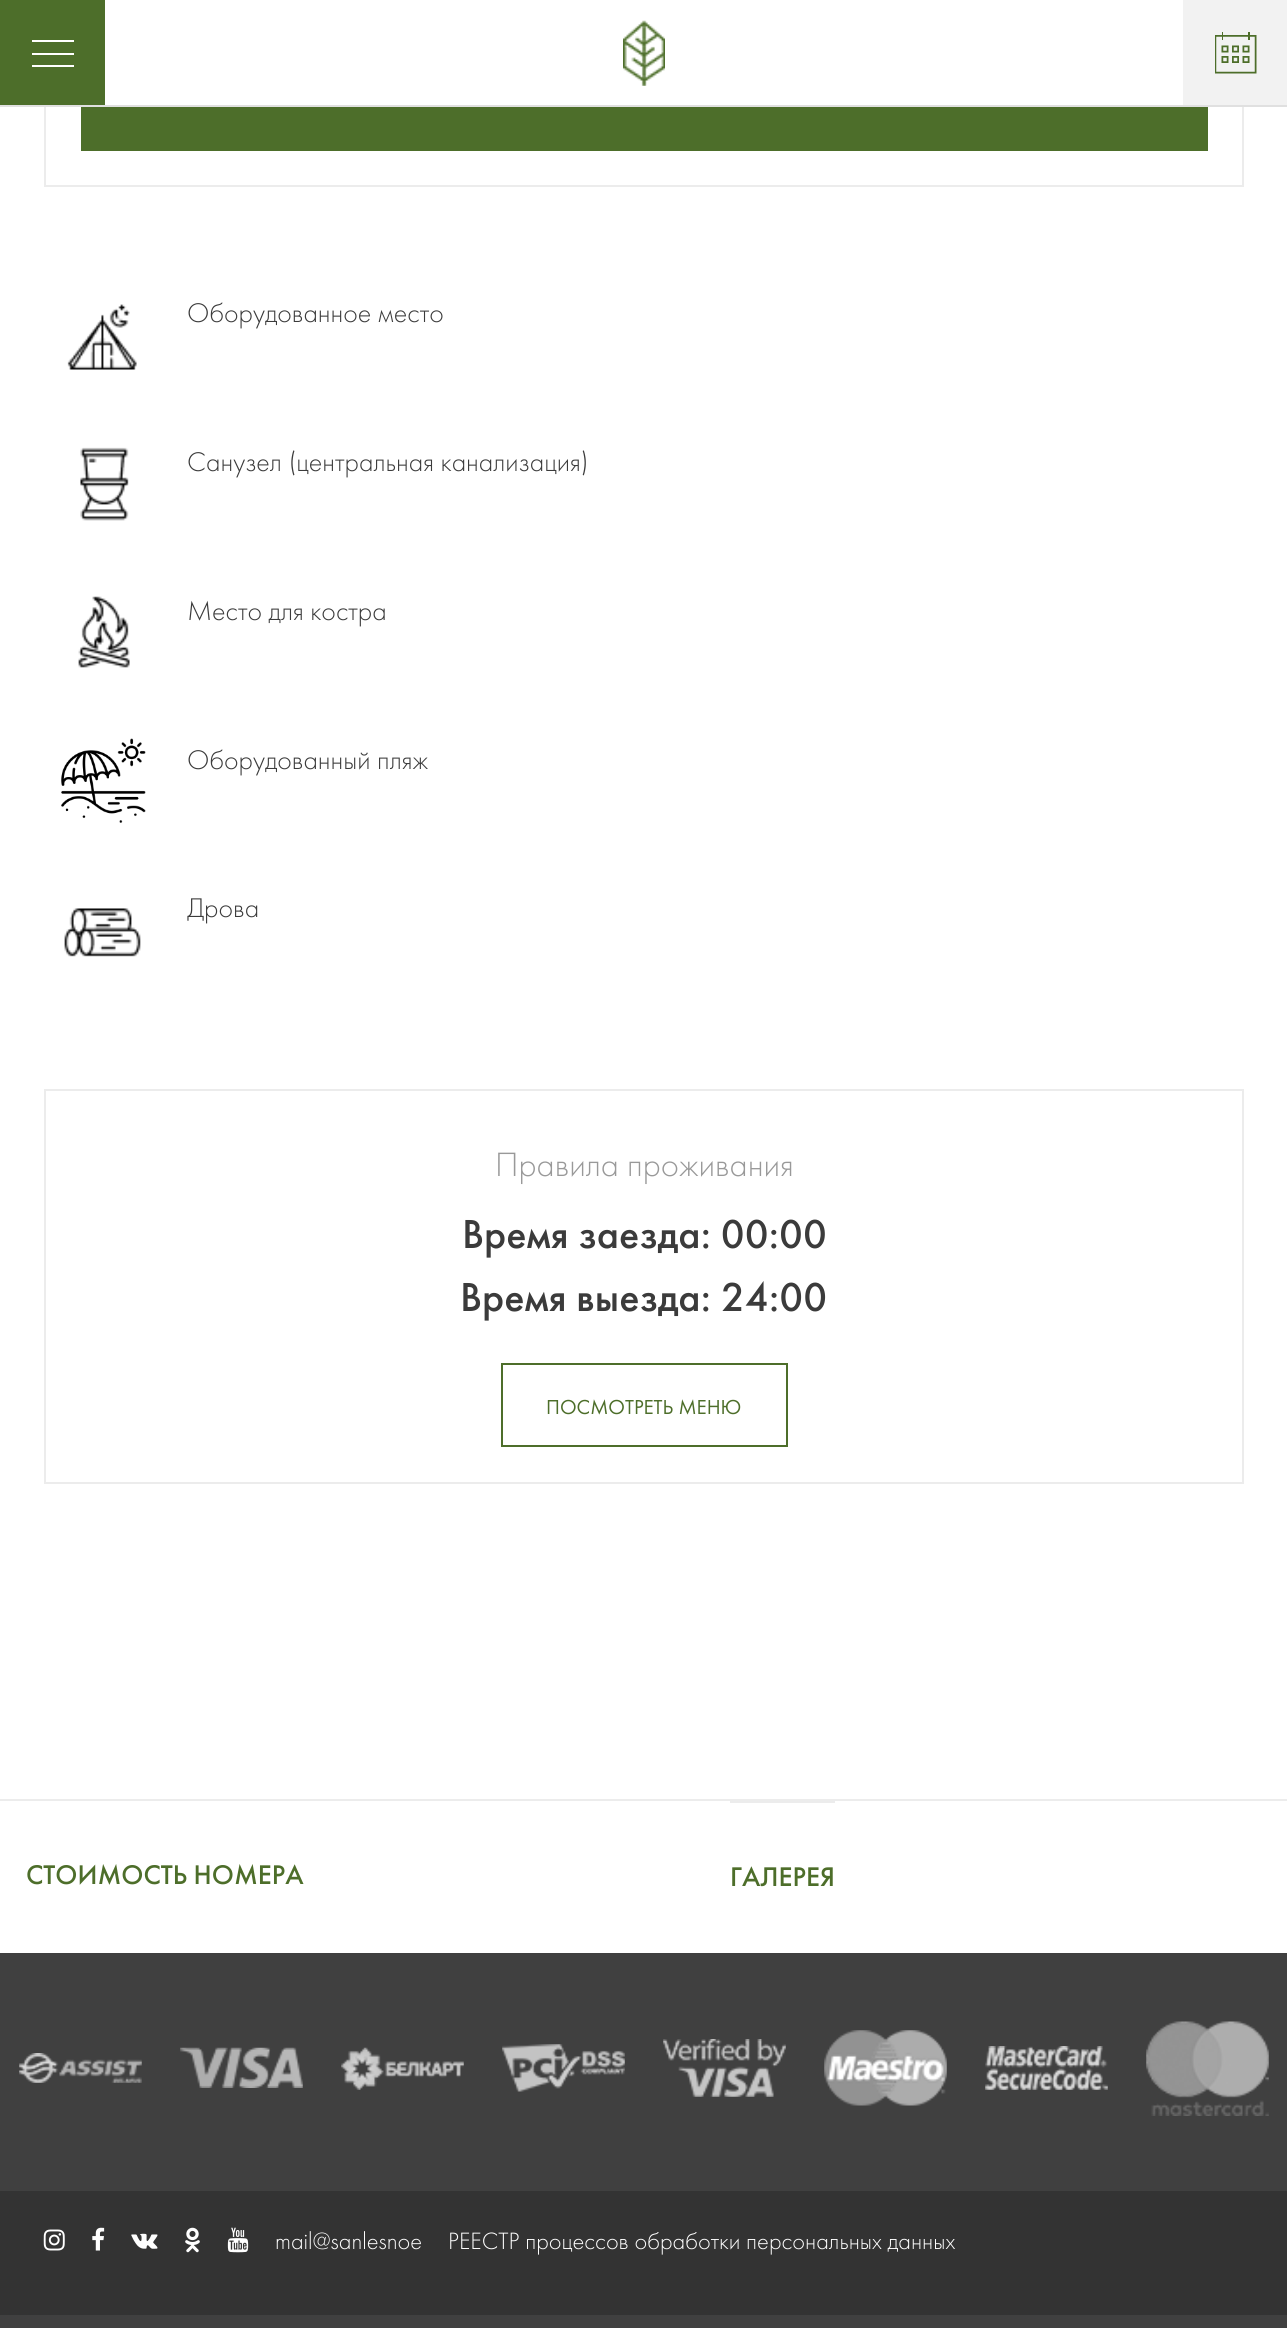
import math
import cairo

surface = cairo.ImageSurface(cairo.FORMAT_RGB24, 1287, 2328)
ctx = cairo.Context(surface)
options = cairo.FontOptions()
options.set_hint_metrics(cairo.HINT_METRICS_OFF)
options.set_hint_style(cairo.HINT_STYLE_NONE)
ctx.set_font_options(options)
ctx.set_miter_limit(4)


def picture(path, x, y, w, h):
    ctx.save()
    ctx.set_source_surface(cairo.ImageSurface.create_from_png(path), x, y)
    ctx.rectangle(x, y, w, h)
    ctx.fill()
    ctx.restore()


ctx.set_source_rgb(1, 1, 1)
ctx.paint()
ctx.rectangle(45, -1, 1198, 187)
ctx.set_source_rgb(0.922, 0.922, 0.922)
ctx.stroke()
ctx.set_source_rgb(0.878, 0.878, 0.878)
ctx.rectangle(0, 105, 1287, 2)
ctx.fill()
ctx.set_source_rgb(0.302, 0.431, 0.165)
ctx.rectangle(0, 0, 105, 105)
ctx.fill()
ctx.set_source_rgb(1, 1, 1)
ctx.rectangle(32, 40, 42, 2)
ctx.fill()
ctx.rectangle(32, 53, 42, 2)
ctx.fill()
ctx.rectangle(32, 65, 42, 2)
ctx.fill()
picture("img1.png", 623, 20, 42, 66)
ctx.set_source_rgb(0.949, 0.949, 0.949)
ctx.rectangle(1183, 0, 104, 105)
ctx.fill()
picture("img2.png", 1215, 32, 42, 42)
ctx.set_source_rgb(0.302, 0.431, 0.165)
ctx.rectangle(81, 107, 1127, 44)
ctx.fill()
picture("img3.png", 67, 304, 70, 66)
ctx.select_font_face("Futura PT Light")
ctx.set_font_size(28)
ctx.set_source_rgb(0.231, 0.231, 0.231)
ctx.move_to(187, 322)
ctx.show_text("Оборудованное место")
picture("img4.png", 80, 447, 49, 74)
ctx.move_to(187, 471)
ctx.show_text("Санузел (центральная канализация)")
picture("img5.png", 78, 596, 52, 72)
ctx.move_to(187, 620)
ctx.show_text("Место для костра")
picture("img6.png", 61, 738, 85, 85)
ctx.move_to(187, 769)
ctx.show_text("Оборудованный пляж")
picture("img7.png", 64, 908, 77, 49)
ctx.move_to(187, 917)
ctx.show_text("Дрова")
ctx.rectangle(45, 1090, 1198, 393)
ctx.set_source_rgb(0.922, 0.922, 0.922)
ctx.stroke()
ctx.set_font_size(35)
ctx.set_source_rgb(0.6, 0.6, 0.6)
ctx.move_to(495, 1176)
ctx.show_text("Правила проживания")
ctx.select_font_face("Futura PT Medium")
ctx.set_font_size(42)
ctx.set_source_rgb(0.231, 0.231, 0.231)
ctx.move_to(462, 1248)
ctx.show_text("Время заезда: 00:00")
ctx.move_to(460, 1311)
ctx.show_text("Время выезда: 24:00")
ctx.rectangle(502, 1364, 285, 82)
ctx.set_source_rgb(0.302, 0.431, 0.165)
ctx.stroke()
ctx.select_font_face("Futura PT")
ctx.set_font_size(21)
ctx.move_to(546, 1414)
ctx.show_text("ПОСМОТРЕТЬ МЕНЮ")
ctx.set_source_rgb(0.922, 0.922, 0.922)
ctx.rectangle(0, 1799, 1287, 2)
ctx.fill()
ctx.select_font_face("Futura PT Medium")
ctx.set_font_size(28)
ctx.set_source_rgb(0.302, 0.431, 0.165)
ctx.move_to(26, 1884)
ctx.show_text("СТОИМОСТЬ НОМЕРА")
ctx.set_source_rgb(0.922, 0.922, 0.922)
ctx.rectangle(730, 1801, 105, 2)
ctx.fill()
ctx.set_source_rgb(0.302, 0.431, 0.165)
ctx.move_to(730, 1886)
ctx.show_text("ГАЛЕРЕЯ")
ctx.set_source_rgb(0.2, 0.2, 0.2)
ctx.rectangle(0, 2191, 1287, 124)
ctx.fill()
ctx.set_source_rgb(0.251, 0.251, 0.251)
ctx.rectangle(0, 1953, 1287, 238)
ctx.fill()
picture("img8.png", 19, 2053, 123, 30)
picture("img9.png", 180, 2047, 123, 41)
picture("img10.png", 341, 2047, 123, 43)
picture("img11.png", 502, 2044, 123, 48)
picture("img12.png", 663, 2039, 123, 58)
picture("img13.png", 824, 2030, 123, 76)
picture("img14.png", 985, 2046, 123, 44)
picture("img15.png", 1146, 2021, 123, 95)
picture("img16.png", 43, 2229, 22, 22)
picture("img17.png", 92, 2227, 13, 24)
picture("img18.png", 131, 2233, 27, 16)
picture("img19.png", 185, 2227, 15, 26)
picture("img20.png", 227, 2227, 22, 26)
ctx.select_font_face("Futura PT Light")
ctx.set_font_size(24.5)
ctx.set_source_rgb(1, 1, 1)
ctx.move_to(275, 2249)
ctx.show_text("mail@sanlesnoe")
ctx.move_to(448, 2249)
ctx.show_text("РЕЕСТР процессов обработки персональных данных")
ctx.set_source_rgb(0.251, 0.251, 0.251)
ctx.rectangle(0, 2315, 1287, 13)
ctx.fill()
surface.write_to_png("page.png")
